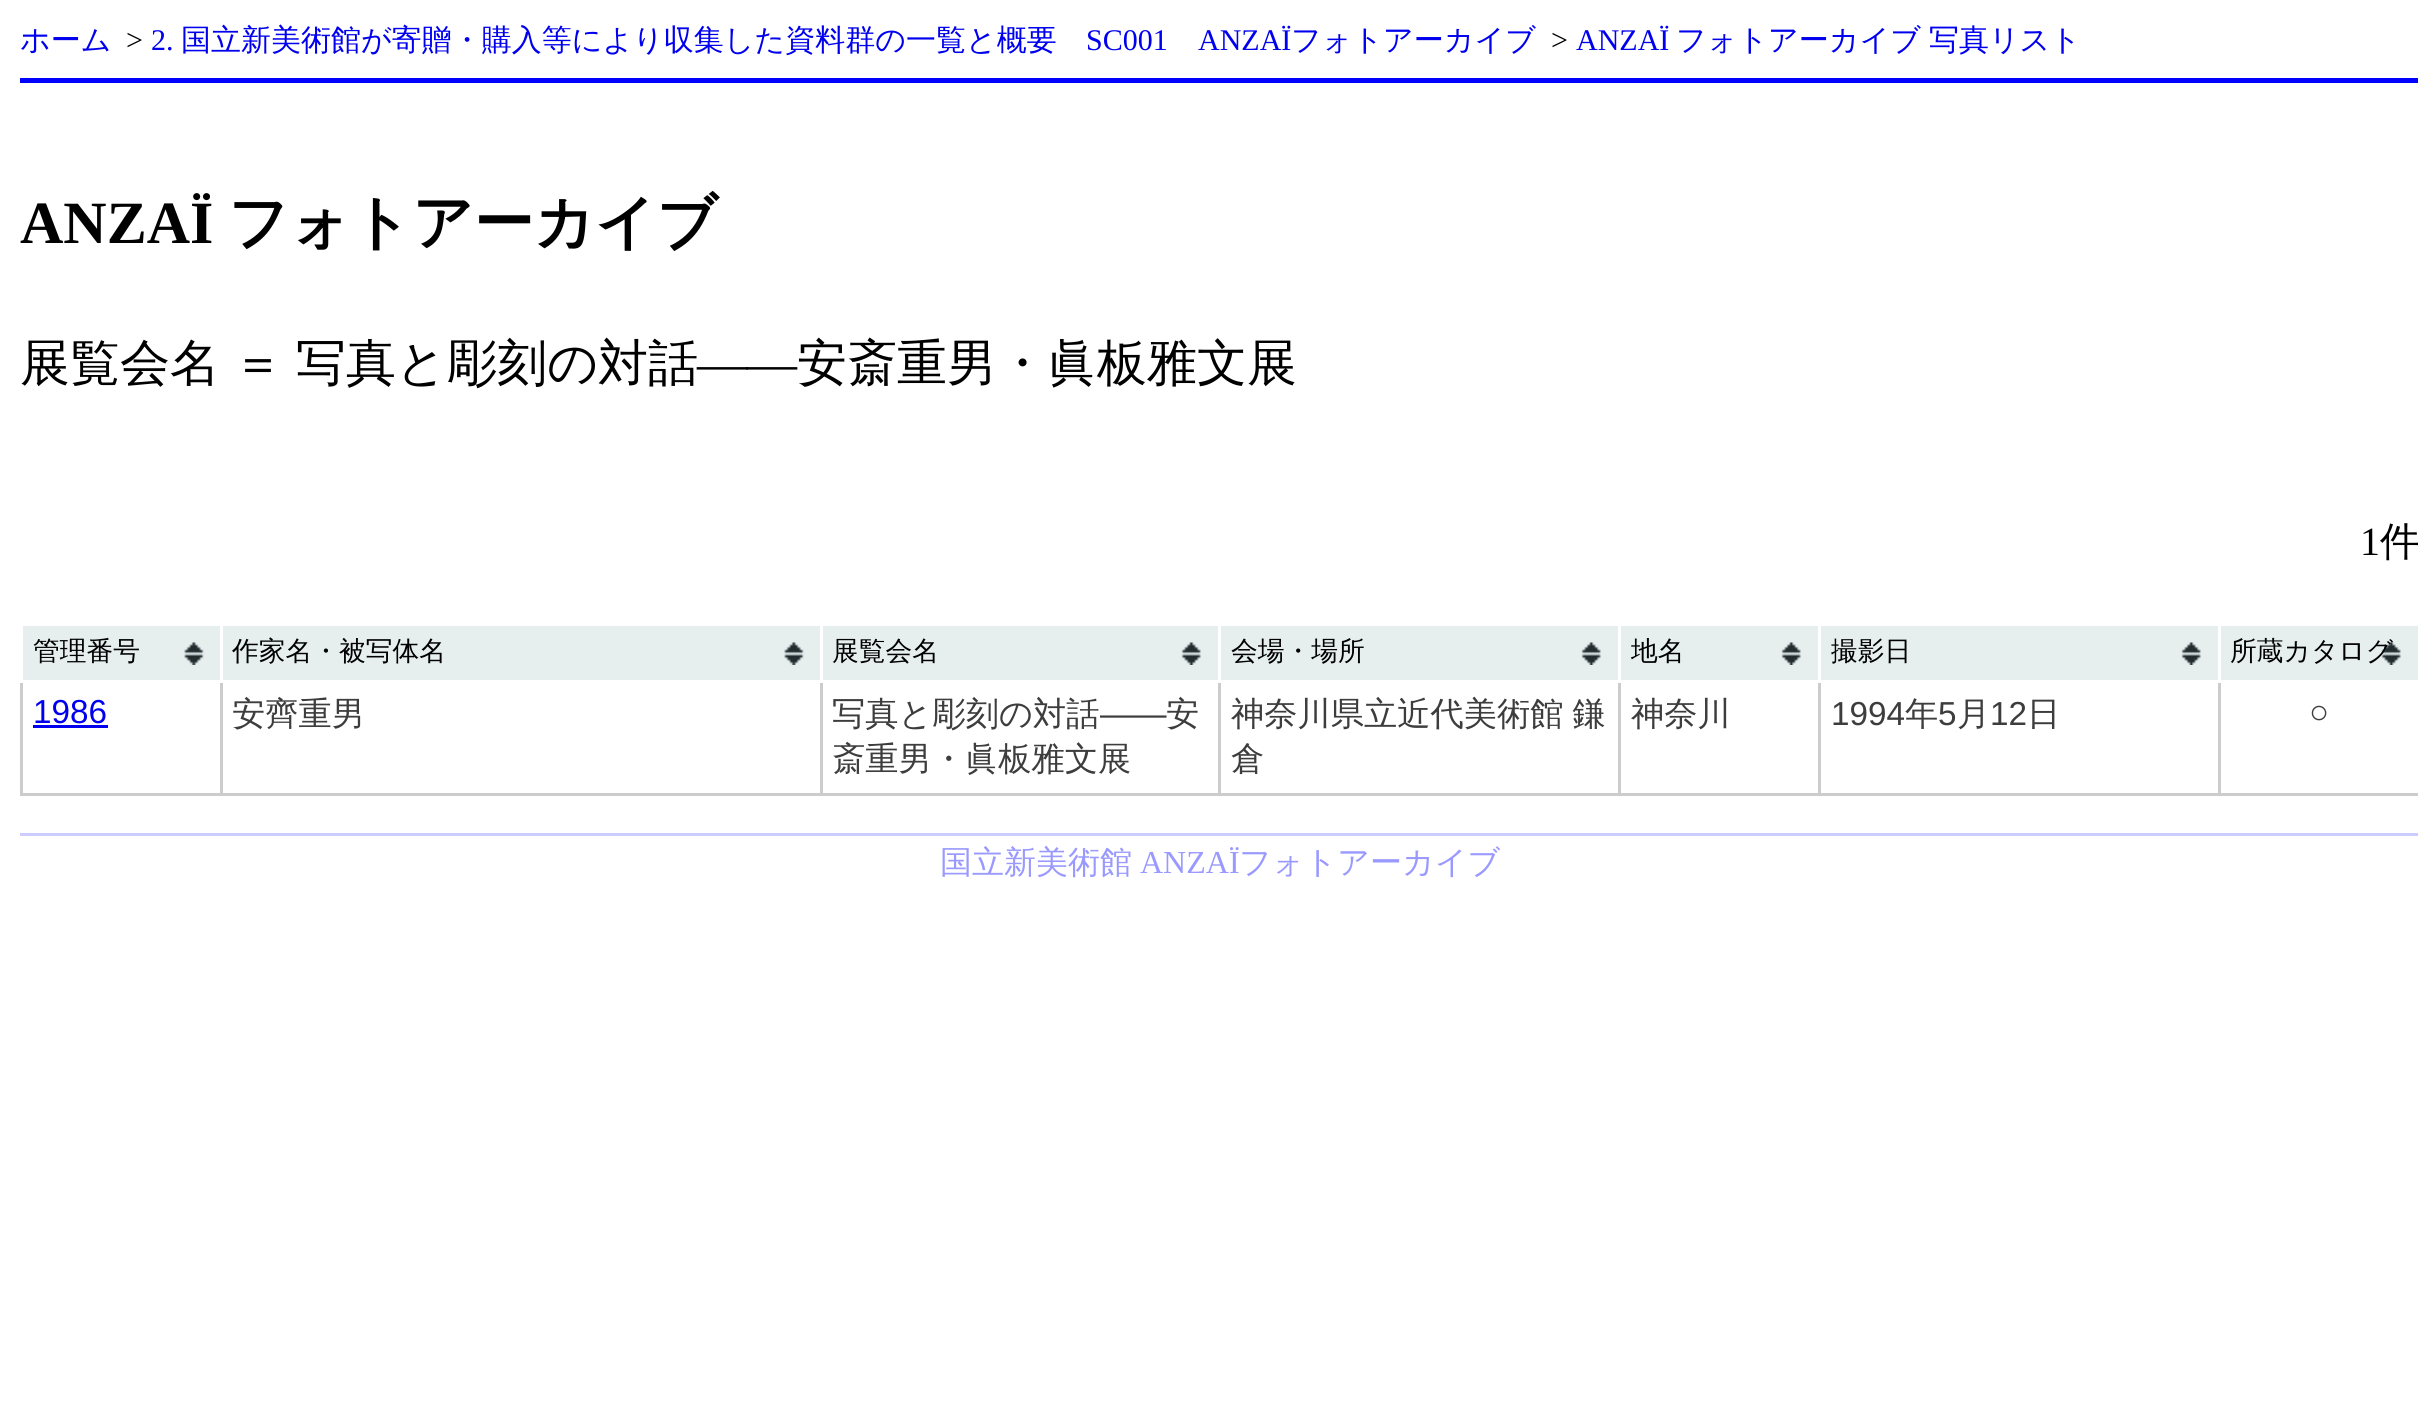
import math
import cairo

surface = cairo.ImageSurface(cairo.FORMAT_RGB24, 2418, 1419)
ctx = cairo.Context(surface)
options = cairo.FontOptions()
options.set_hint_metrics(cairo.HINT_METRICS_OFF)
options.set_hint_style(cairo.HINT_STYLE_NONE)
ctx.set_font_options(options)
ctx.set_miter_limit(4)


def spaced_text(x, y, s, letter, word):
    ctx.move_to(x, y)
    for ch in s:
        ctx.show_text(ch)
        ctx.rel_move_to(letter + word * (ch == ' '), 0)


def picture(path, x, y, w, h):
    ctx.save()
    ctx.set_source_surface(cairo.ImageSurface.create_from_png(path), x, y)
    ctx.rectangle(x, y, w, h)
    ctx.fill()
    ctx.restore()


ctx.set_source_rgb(1, 1, 1)
ctx.paint()
ctx.set_source_rgb(0, 0, 1)
ctx.rectangle(20, 78, 2398, 5)
ctx.fill()
ctx.select_font_face("WenQuanYi Zen Hei Medium")
ctx.set_font_size(30)
ctx.set_source_rgb(0, 0, 0.933)
ctx.move_to(20, 50)
ctx.show_text("ホーム")
ctx.select_font_face("Liberation Serif")
ctx.set_source_rgb(0, 0, 0)
ctx.move_to(126, 50)
ctx.show_text(">")
ctx.set_source_rgb(0, 0, 0.933)
ctx.move_to(151, 50)
ctx.show_text("2.")
ctx.select_font_face("WenQuanYi Zen Hei Medium")
ctx.move_to(181, 50)
ctx.show_text("国立新美術館が寄贈・購入等により収集した資料群の一覧と概要")
ctx.select_font_face("Liberation Serif")
ctx.move_to(1086, 50)
ctx.show_text("SC001")
ctx.move_to(1198, 50)
ctx.show_text("ANZAÏ")
ctx.select_font_face("WenQuanYi Zen Hei Medium")
ctx.move_to(1291, 50)
ctx.show_text("フォトアーカイブ")
ctx.select_font_face("Liberation Serif")
ctx.set_source_rgb(0, 0, 0)
ctx.move_to(1551, 50)
ctx.show_text(">")
ctx.set_source_rgb(0, 0, 0.933)
ctx.move_to(1576, 50)
ctx.show_text("ANZAÏ")
ctx.select_font_face("WenQuanYi Zen Hei Medium")
spaced_text(1676, 50, "フォトアーカイブ 写真リスト", 0, -1)
ctx.select_font_face("Liberation Serif", cairo.FONT_SLANT_NORMAL, cairo.FONT_WEIGHT_BOLD)
ctx.set_font_size(60)
ctx.set_source_rgb(0, 0, 0)
ctx.move_to(20, 243)
ctx.show_text("ANZAÏ")
ctx.select_font_face("WenQuanYi Zen Hei", cairo.FONT_SLANT_NORMAL, cairo.FONT_WEIGHT_BOLD)
ctx.move_to(228, 243)
ctx.show_text("フォトアーカイブ")
ctx.select_font_face("WenQuanYi Zen Hei Medium")
ctx.set_font_size(50)
spaced_text(20, 380, "展覧会名 ＝ 写真と彫刻の対話", 0, -2)
ctx.select_font_face("Liberation Serif")
ctx.move_to(697, 380)
ctx.show_text("――")
ctx.select_font_face("WenQuanYi Zen Hei Medium")
ctx.move_to(797, 380)
ctx.show_text("安斎重男・眞板雅文展")
ctx.select_font_face("Liberation Serif")
ctx.set_font_size(40)
ctx.move_to(2360, 555)
ctx.show_text("1")
ctx.select_font_face("WenQuanYi Zen Hei Medium")
ctx.move_to(2380, 555)
ctx.show_text("件")
ctx.set_source_rgb(0.804, 0.804, 0.804)
ctx.rectangle(20, 683, 3, 110)
ctx.fill()
ctx.set_source_rgb(0.902, 0.933, 0.933)
ctx.rectangle(23, 626, 197, 54)
ctx.fill()
picture("img1.png", 184, 642, 20, 23)
ctx.set_font_size(26.75)
ctx.set_source_rgb(0, 0, 0)
ctx.move_to(33, 660)
ctx.show_text("管理番号")
ctx.set_source_rgb(0.902, 0.933, 0.933)
ctx.rectangle(223, 626, 597, 54)
ctx.fill()
picture("img1.png", 784, 642, 20, 23)
ctx.set_source_rgb(0.8, 0.8, 0.8)
ctx.rectangle(2218, 793, 200, 3)
ctx.fill()
ctx.rectangle(2218, 680, 3, 115)
ctx.fill()
ctx.rectangle(1818, 793, 402, 3)
ctx.fill()
ctx.rectangle(1818, 680, 3, 115)
ctx.fill()
ctx.rectangle(1618, 793, 202, 3)
ctx.fill()
ctx.rectangle(1618, 680, 3, 115)
ctx.fill()
ctx.rectangle(1218, 793, 402, 3)
ctx.fill()
ctx.rectangle(1218, 680, 3, 115)
ctx.fill()
ctx.rectangle(820, 793, 400, 3)
ctx.fill()
ctx.rectangle(820, 680, 3, 115)
ctx.fill()
ctx.rectangle(220, 793, 603, 3)
ctx.fill()
ctx.rectangle(220, 680, 3, 115)
ctx.fill()
ctx.set_source_rgb(1, 1, 1)
ctx.rectangle(220, 680, 3, 3)
ctx.fill()
ctx.set_source_rgb(0, 0, 0)
ctx.move_to(232, 660)
ctx.show_text("作家名・被写体名")
ctx.set_source_rgb(0.902, 0.933, 0.933)
ctx.rectangle(823, 626, 395, 54)
ctx.fill()
picture("img2.png", 1181, 642, 20, 23)
ctx.set_source_rgb(1, 1, 1)
ctx.rectangle(820, 680, 3, 3)
ctx.fill()
ctx.set_source_rgb(0, 0, 0)
ctx.move_to(832, 660)
ctx.show_text("展覧会名")
ctx.set_source_rgb(0.902, 0.933, 0.933)
ctx.rectangle(1221, 626, 397, 54)
ctx.fill()
picture("img3.png", 1581, 642, 20, 23)
ctx.set_source_rgb(1, 1, 1)
ctx.rectangle(1218, 680, 3, 3)
ctx.fill()
ctx.set_source_rgb(0, 0, 0)
ctx.move_to(1231, 660)
ctx.show_text("会場・場所")
ctx.set_source_rgb(0.902, 0.933, 0.933)
ctx.rectangle(1621, 626, 197, 54)
ctx.fill()
picture("img3.png", 1781, 642, 20, 23)
ctx.set_source_rgb(1, 1, 1)
ctx.rectangle(1618, 680, 3, 3)
ctx.fill()
ctx.set_source_rgb(0, 0, 0)
ctx.move_to(1631, 660)
ctx.show_text("地名")
ctx.set_source_rgb(0.902, 0.933, 0.933)
ctx.rectangle(1821, 626, 397, 54)
ctx.fill()
picture("img3.png", 2181, 642, 20, 23)
ctx.set_source_rgb(1, 1, 1)
ctx.rectangle(1818, 680, 3, 3)
ctx.fill()
ctx.set_source_rgb(0, 0, 0)
ctx.move_to(1831, 660)
ctx.show_text("撮影日")
ctx.set_source_rgb(0.902, 0.933, 0.933)
ctx.rectangle(2221, 626, 197, 54)
ctx.fill()
picture("img3.png", 2381, 642, 20, 23)
ctx.set_source_rgb(1, 1, 1)
ctx.rectangle(2218, 680, 3, 3)
ctx.fill()
ctx.set_source_rgb(0, 0, 0)
ctx.move_to(2230, 660)
ctx.show_text("所蔵カタログ")
ctx.set_source_rgb(0.8, 0.8, 0.8)
ctx.rectangle(20, 793, 203, 3)
ctx.fill()
ctx.select_font_face("Liberation Sans")
ctx.set_font_size(33.25)
ctx.set_source_rgb(0, 0, 0.933)
ctx.move_to(33, 723)
ctx.show_text("1986")
ctx.rectangle(33, 725, 75, 3)
ctx.fill()
ctx.select_font_face("WenQuanYi Zen Hei Medium")
ctx.set_source_rgb(0.239, 0.239, 0.239)
ctx.move_to(232, 725)
ctx.show_text("安齊重男")
ctx.move_to(832, 725)
ctx.show_text("写真と彫刻の対話")
ctx.select_font_face("Liberation Sans")
ctx.move_to(1100, 725)
ctx.show_text("――")
ctx.select_font_face("WenQuanYi Zen Hei Medium")
ctx.move_to(1166, 725)
ctx.show_text("安")
ctx.move_to(832, 770)
ctx.show_text("斎重男・眞板雅文展")
spaced_text(1231, 725, "神奈川県立近代美術館 鎌", 0, -1)
ctx.move_to(1231, 770)
ctx.show_text("倉")
ctx.move_to(1631, 725)
ctx.show_text("神奈川")
ctx.select_font_face("Liberation Sans")
ctx.move_to(1831, 725)
ctx.show_text("1994")
ctx.select_font_face("WenQuanYi Zen Hei Medium")
ctx.move_to(1905, 725)
ctx.show_text("年")
ctx.select_font_face("Liberation Sans")
ctx.move_to(1938, 725)
ctx.show_text("5")
ctx.select_font_face("WenQuanYi Zen Hei Medium")
ctx.move_to(1957, 725)
ctx.show_text("月")
ctx.select_font_face("Liberation Sans")
ctx.move_to(1990, 725)
ctx.show_text("12")
ctx.select_font_face("WenQuanYi Zen Hei Medium")
ctx.move_to(2027, 725)
ctx.show_text("日")
ctx.select_font_face("Liberation Sans")
ctx.move_to(2309, 723)
ctx.show_text("○")
ctx.set_source_rgb(0.8, 0.8, 1)
ctx.rectangle(20, 833, 2398, 3)
ctx.fill()
ctx.select_font_face("WenQuanYi Zen Hei Medium")
ctx.set_font_size(32)
ctx.set_source_rgb(0.6, 0.6, 1)
ctx.move_to(940, 873)
ctx.show_text("国立新美術館")
ctx.select_font_face("Liberation Serif")
ctx.move_to(1140, 873)
ctx.show_text("ANZAÏ")
ctx.select_font_face("WenQuanYi Zen Hei Medium")
ctx.move_to(1239, 873)
ctx.show_text("フォトアーカイブ")
surface.write_to_png("page.png")
